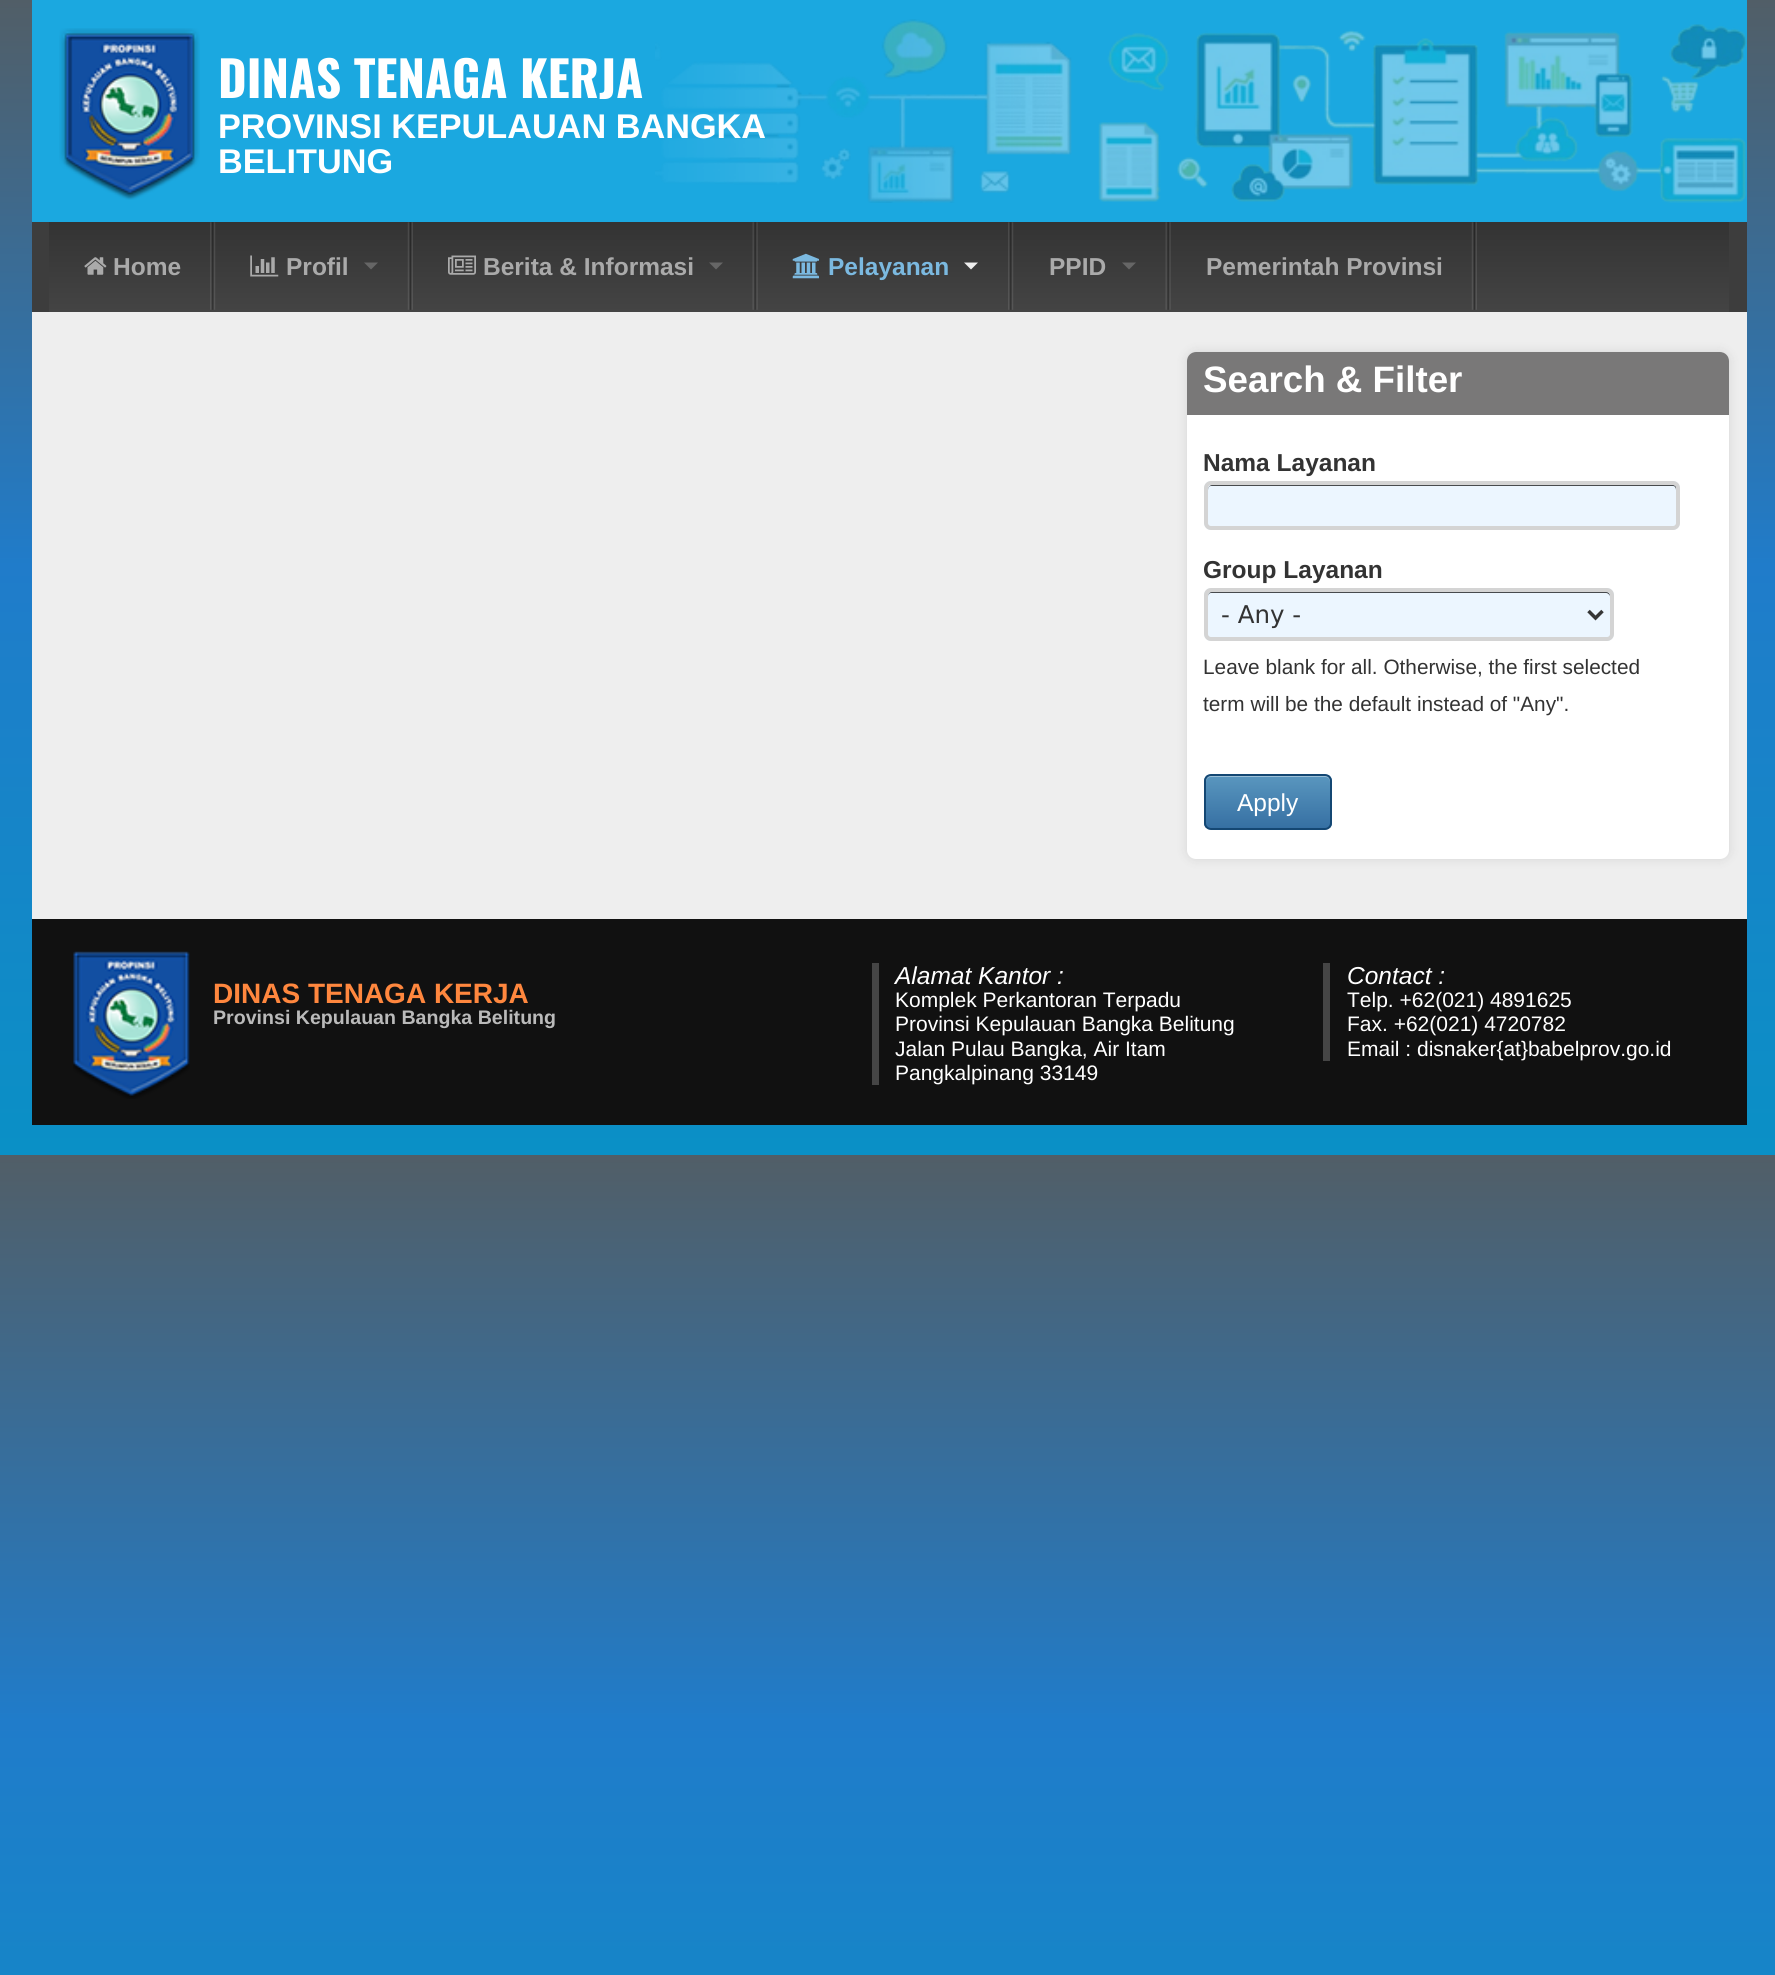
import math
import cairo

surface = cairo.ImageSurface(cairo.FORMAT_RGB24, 1775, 1975)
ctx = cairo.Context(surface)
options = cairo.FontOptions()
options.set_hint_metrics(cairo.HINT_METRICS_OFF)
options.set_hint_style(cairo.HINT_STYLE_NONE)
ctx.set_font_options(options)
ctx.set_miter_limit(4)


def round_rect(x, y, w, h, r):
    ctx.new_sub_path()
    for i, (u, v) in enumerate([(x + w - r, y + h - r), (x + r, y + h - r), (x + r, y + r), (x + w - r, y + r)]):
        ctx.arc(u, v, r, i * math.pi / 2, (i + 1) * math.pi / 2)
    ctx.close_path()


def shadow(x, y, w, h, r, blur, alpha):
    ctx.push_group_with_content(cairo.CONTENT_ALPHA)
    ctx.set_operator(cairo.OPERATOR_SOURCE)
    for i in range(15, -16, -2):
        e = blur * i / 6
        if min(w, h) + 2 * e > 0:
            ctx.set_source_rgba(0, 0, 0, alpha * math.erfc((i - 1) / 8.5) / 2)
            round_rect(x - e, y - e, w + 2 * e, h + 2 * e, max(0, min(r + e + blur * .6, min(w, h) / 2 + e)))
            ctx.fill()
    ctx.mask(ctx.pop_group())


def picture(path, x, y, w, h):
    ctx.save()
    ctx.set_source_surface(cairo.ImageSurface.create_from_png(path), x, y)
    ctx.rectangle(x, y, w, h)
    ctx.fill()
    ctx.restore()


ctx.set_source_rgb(1, 1, 1)
ctx.paint()
gradient = cairo.LinearGradient(888, 0, 888, 1155)
gradient.add_color_stop_rgba(0, 0.318, 0.369, 0.404, 1)
gradient.add_color_stop_rgba(0.49, 0.125, 0.486, 0.792, 1)
gradient.add_color_stop_rgba(1, 0.039, 0.565, 0.776, 1)
ctx.set_source(gradient)
ctx.rectangle(0, 0, 1775, 1155)
ctx.fill()
gradient = cairo.LinearGradient(888, 1155, 888, 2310)
gradient.add_color_stop_rgba(0, 0.318, 0.369, 0.404, 1)
gradient.add_color_stop_rgba(0.49, 0.125, 0.486, 0.792, 1)
gradient.add_color_stop_rgba(1, 0.039, 0.565, 0.776, 1)
ctx.set_source(gradient)
ctx.rectangle(0, 1155, 1775, 820)
ctx.fill()
ctx.set_source_rgb(0.106, 0.659, 0.878)
ctx.rectangle(32, 0, 1715, 222)
ctx.fill()
picture("img1.png", 655, 19, 1092, 184)
picture("img2.png", 59, 28, 141, 172)
ctx.select_font_face("Oswald", cairo.FONT_SLANT_NORMAL, cairo.FONT_WEIGHT_BOLD)
ctx.set_font_size(49)
ctx.set_source_rgb(1, 1, 1)
ctx.move_to(218, 98)
ctx.show_text("DINAS TENAGA KERJA")
ctx.select_font_face("Liberation Sans", cairo.FONT_SLANT_NORMAL, cairo.FONT_WEIGHT_BOLD)
ctx.set_font_size(34.25)
ctx.move_to(218, 138)
ctx.show_text("PROVINSI KEPULAUAN BANGKA")
ctx.move_to(218, 173)
ctx.show_text("BELITUNG")
ctx.set_source_rgb(0.933, 0.933, 0.933)
ctx.rectangle(32, 312, 1715, 607)
ctx.fill()
ctx.set_source_rgb(0.239, 0.239, 0.239)
ctx.rectangle(32, 222, 1715, 90)
ctx.fill()
gradient = cairo.LinearGradient(889, 222, 889, 312)
gradient.add_color_stop_rgba(0, 0.2, 0.2, 0.2, 1)
gradient.add_color_stop_rgba(1, 0.267, 0.267, 0.267, 1)
ctx.set_source(gradient)
ctx.rectangle(49, 222, 1680, 90)
ctx.fill()
picture("img3.png", 210, 222, 6, 88)
picture("img4.png", 84, 257, 23, 18)
ctx.set_font_size(24.5)
ctx.set_source_rgb(0.667, 0.667, 0.667)
ctx.move_to(113, 275)
ctx.show_text("Home")
picture("img5.png", 407, 222, 6, 88)
picture("img6.png", 250, 255, 29, 22)
ctx.move_to(286, 275)
ctx.show_text("Profil")
ctx.set_source_rgb(0.4, 0.4, 0.4)
ctx.new_path()
ctx.move_to(364, 262.5)
ctx.line_to(378, 262.5)
ctx.line_to(371, 269.5)
ctx.close_path()
ctx.fill()
picture("img7.png", 752, 222, 6, 88)
picture("img8.png", 448, 255, 28, 20)
ctx.set_source_rgb(0.667, 0.667, 0.667)
ctx.move_to(483, 275)
ctx.show_text("Berita & Informasi")
ctx.set_source_rgb(0.4, 0.4, 0.4)
ctx.new_path()
ctx.move_to(709, 262.5)
ctx.line_to(723, 262.5)
ctx.line_to(716, 269.5)
ctx.close_path()
ctx.fill()
picture("img3.png", 1008, 222, 6, 88)
picture("img9.png", 792, 253, 27, 26)
ctx.set_source_rgb(0.482, 0.725, 0.878)
ctx.move_to(828, 275)
ctx.show_text("Pelayanan")
ctx.set_source_rgb(0.933, 0.933, 0.933)
ctx.new_path()
ctx.move_to(964, 262.5)
ctx.line_to(978, 262.5)
ctx.line_to(971, 269.5)
ctx.close_path()
ctx.fill()
picture("img7.png", 1165, 222, 6, 88)
ctx.set_source_rgb(0.667, 0.667, 0.667)
ctx.move_to(1049, 275)
ctx.show_text("PPID")
ctx.set_source_rgb(0.4, 0.4, 0.4)
ctx.new_path()
ctx.move_to(1122, 262.5)
ctx.line_to(1136, 262.5)
ctx.line_to(1129, 269.5)
ctx.close_path()
ctx.fill()
picture("img5.png", 1471, 222, 6, 88)
ctx.set_source_rgb(0.667, 0.667, 0.667)
ctx.move_to(1206, 275)
ctx.show_text("Pemerintah Provinsi")
ctx.set_source_rgb(0.196, 0.196, 0.196)
shadow(1185, 350, 546, 511, 11, 4.5, 0.1)
ctx.set_source_rgb(1, 1, 1)
round_rect(1187, 352, 542, 507, 9)
ctx.fill()
ctx.set_source_rgb(0.475, 0.471, 0.471)
ctx.new_path()
ctx.move_to(1196, 352)
ctx.line_to(1720, 352)
ctx.curve_to(1725, 352, 1729, 356, 1729, 361)
ctx.line_to(1729, 415)
ctx.line_to(1187, 415)
ctx.line_to(1187, 361)
ctx.curve_to(1187, 356, 1191, 352, 1196, 352)
ctx.close_path()
ctx.fill()
ctx.set_font_size(36.75)
ctx.set_source_rgb(1, 1, 1)
ctx.move_to(1203, 392)
ctx.show_text("Search & Filter")
ctx.set_font_size(24.5)
ctx.set_source_rgb(0.2, 0.2, 0.2)
ctx.move_to(1203, 471)
ctx.show_text("Nama Layanan")
ctx.set_source_rgb(0.922, 0.961, 1)
round_rect(1204, 481, 476, 49, 7)
ctx.fill()
ctx.set_source_rgb(0.278, 0.29, 0.302)
ctx.new_path()
ctx.move_to(1211, 486)
ctx.line_to(1673, 486)
ctx.curve_to(1675, 486, 1676, 488, 1676, 490)
ctx.line_to(1676, 526)
ctx.curve_to(1677, 525, 1677, 524, 1677, 523)
ctx.line_to(1677, 489)
ctx.curve_to(1677, 487, 1675, 485, 1673, 485)
ctx.line_to(1212, 485)
ctx.curve_to(1210, 485, 1208, 487, 1208, 489)
ctx.line_to(1208, 490)
ctx.curve_to(1208, 488, 1209, 486, 1211, 486)
ctx.close_path()
ctx.fill()
round_rect(1206, 483, 472, 45, 5)
ctx.set_source_rgb(0.831, 0.831, 0.831)
ctx.set_line_width(4)
ctx.stroke()
ctx.set_source_rgb(0.2, 0.2, 0.2)
ctx.move_to(1203, 578)
ctx.show_text("Group Layanan")
ctx.set_source_rgb(0.922, 0.961, 1)
round_rect(1204, 588, 410, 53, 7)
ctx.fill()
ctx.set_source_rgb(0.278, 0.29, 0.302)
ctx.new_path()
ctx.move_to(1211, 593)
ctx.line_to(1606, 593)
ctx.curve_to(1608, 593, 1610, 595, 1610, 597)
ctx.curve_to(1610, 594, 1609, 592, 1606, 592)
ctx.line_to(1212, 592)
ctx.curve_to(1209, 592, 1208, 594, 1208, 597)
ctx.curve_to(1208, 595, 1209, 593, 1211, 593)
ctx.close_path()
ctx.fill()
round_rect(1206, 590, 406, 49, 5)
ctx.set_source_rgb(0.831, 0.831, 0.831)
ctx.stroke()
ctx.new_path()
ctx.move_to(1588.5, 611)
ctx.line_to(1595.5, 618)
ctx.line_to(1602.5, 611)
ctx.set_source_rgb(0.212, 0.212, 0.212)
ctx.set_line_width(3.5)
ctx.stroke()
ctx.select_font_face("DejaVu Sans")
ctx.set_source_rgb(0.2, 0.2, 0.2)
ctx.move_to(1221, 623)
ctx.show_text("- Any -")
ctx.select_font_face("Liberation Sans")
ctx.set_font_size(20.8)
ctx.move_to(1203, 674)
ctx.show_text("Leave blank for all. Otherwise, the first selected")
ctx.move_to(1203, 711)
ctx.show_text("term will be the default instead of \"Any\".")
ctx.save()
round_rect(1204, 774, 128, 56, 7)
ctx.clip()
gradient = cairo.LinearGradient(1268, 775, 1268, 828)
gradient.add_color_stop_rgba(0, 0.353, 0.592, 0.749, 1)
gradient.add_color_stop_rgba(1, 0.212, 0.439, 0.639, 1)
ctx.set_source(gradient)
ctx.rectangle(1204, 775, 128, 53)
ctx.fill()
ctx.restore()
ctx.set_source_rgba(1, 1, 1, 0.4)
ctx.new_path()
ctx.move_to(1211, 777)
ctx.line_to(1325, 777)
ctx.curve_to(1328, 777, 1330, 779, 1330, 782)
ctx.line_to(1330, 780)
ctx.curve_to(1330, 777, 1328, 775, 1325, 775)
ctx.line_to(1211, 775)
ctx.curve_to(1208, 775, 1206, 777, 1206, 780)
ctx.line_to(1206, 782)
ctx.curve_to(1206, 779, 1208, 777, 1211, 777)
ctx.close_path()
ctx.fill()
round_rect(1205, 775, 126, 54, 6)
ctx.set_source_rgb(0.082, 0.278, 0.451)
ctx.set_line_width(2)
ctx.stroke()
ctx.set_font_size(24.5)
ctx.set_source_rgb(1, 1, 1)
ctx.move_to(1237, 811)
ctx.show_text("Apply")
ctx.set_source_rgb(0.067, 0.067, 0.067)
ctx.rectangle(32, 919, 1715, 206)
ctx.fill()
picture("img10.png", 73, 951, 117, 148)
ctx.select_font_face("Liberation Sans", cairo.FONT_SLANT_NORMAL, cairo.FONT_WEIGHT_BOLD)
ctx.set_font_size(28)
ctx.set_source_rgb(1, 0.529, 0.243)
ctx.move_to(213, 1003)
ctx.show_text("DINAS TENAGA KERJA")
ctx.set_font_size(19.6)
ctx.set_source_rgb(0.729, 0.729, 0.729)
ctx.move_to(213, 1024)
ctx.show_text("Provinsi Kepulauan Bangka Belitung")
ctx.set_source_rgb(0.271, 0.271, 0.271)
ctx.rectangle(872, 963, 7, 122)
ctx.fill()
ctx.select_font_face("Liberation Sans", cairo.FONT_SLANT_ITALIC)
ctx.set_font_size(24.5)
ctx.set_source_rgb(1, 1, 1)
ctx.move_to(895, 984)
ctx.show_text("Alamat Kantor :")
ctx.select_font_face("Liberation Sans")
ctx.set_font_size(21)
ctx.move_to(895, 1007)
ctx.show_text("Komplek Perkantoran Terpadu")
ctx.move_to(895, 1031)
ctx.show_text("Provinsi Kepulauan Bangka Belitung")
ctx.move_to(895, 1056)
ctx.show_text("Jalan Pulau Bangka, Air Itam")
ctx.move_to(895, 1080)
ctx.show_text("Pangkalpinang 33149")
ctx.set_source_rgb(0.271, 0.271, 0.271)
ctx.rectangle(1323, 963, 7, 98)
ctx.fill()
ctx.select_font_face("Liberation Sans", cairo.FONT_SLANT_ITALIC)
ctx.set_font_size(24.5)
ctx.set_source_rgb(1, 1, 1)
ctx.move_to(1347, 984)
ctx.show_text("Contact :")
ctx.select_font_face("Liberation Sans")
ctx.set_font_size(21)
ctx.move_to(1347, 1007)
ctx.show_text("Telp. +62(021) 4891625")
ctx.move_to(1347, 1031)
ctx.show_text("Fax. +62(021) 4720782")
ctx.move_to(1347, 1056)
ctx.show_text("Email : disnaker{at}babelprov.go.id")
surface.write_to_png("page.png")
